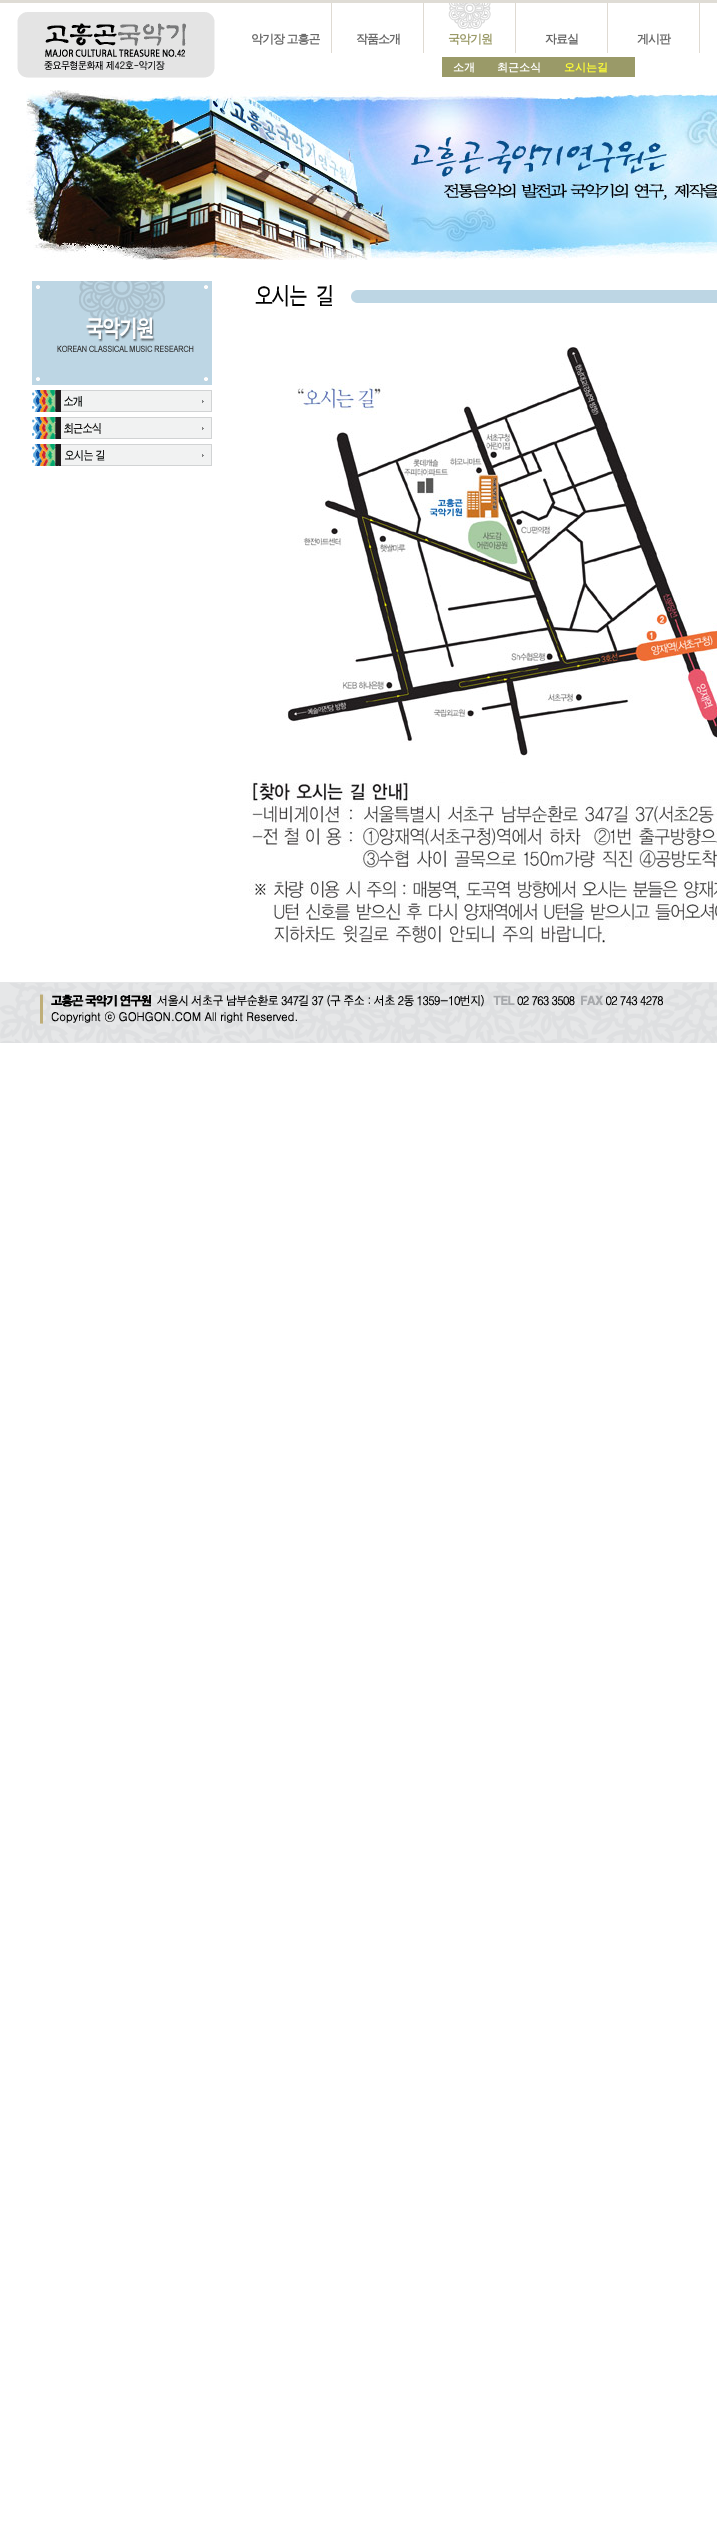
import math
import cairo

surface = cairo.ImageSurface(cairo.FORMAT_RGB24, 717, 2525)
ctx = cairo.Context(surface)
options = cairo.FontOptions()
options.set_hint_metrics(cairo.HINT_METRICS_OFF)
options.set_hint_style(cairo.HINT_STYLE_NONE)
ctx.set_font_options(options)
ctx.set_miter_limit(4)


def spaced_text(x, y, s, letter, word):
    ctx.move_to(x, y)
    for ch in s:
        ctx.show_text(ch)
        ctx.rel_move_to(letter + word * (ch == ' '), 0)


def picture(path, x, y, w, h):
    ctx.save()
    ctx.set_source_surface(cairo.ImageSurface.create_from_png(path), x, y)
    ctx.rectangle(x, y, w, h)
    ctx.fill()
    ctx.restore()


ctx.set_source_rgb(1, 1, 1)
ctx.paint()
ctx.set_source_rgb(0.875, 0.863, 0.835)
ctx.rectangle(0, 0, 717, 3)
ctx.fill()
picture("img1.png", 17, 12, 198, 66)
ctx.set_source_rgb(0.875, 0.855, 0.824)
ctx.rectangle(331, 3, 1, 50)
ctx.fill()
ctx.select_font_face("WenQuanYi Zen Hei", cairo.FONT_SLANT_NORMAL, cairo.FONT_WEIGHT_BOLD)
ctx.set_font_size(12)
ctx.set_source_rgb(0.4, 0.4, 0.4)
spaced_text(251, 43, "악기장 고흥곤", -1, 0)
ctx.set_source_rgb(0.875, 0.855, 0.824)
ctx.rectangle(423, 3, 1, 50)
ctx.fill()
ctx.set_source_rgb(0.4, 0.4, 0.4)
spaced_text(356, 43, "작품소개", -1, 0)
picture("img2.png", 448, 3, 43, 26)
ctx.set_source_rgb(0.875, 0.855, 0.824)
ctx.rectangle(515, 3, 1, 50)
ctx.fill()
ctx.set_source_rgb(0.6, 0.6, 0.4)
spaced_text(448, 43, "국악기원", -1, 0)
ctx.set_source_rgb(0.604, 0.604, 0.408)
ctx.rectangle(442, 57, 193, 20)
ctx.fill()
ctx.set_font_size(11)
ctx.set_source_rgb(1, 1, 1)
ctx.move_to(453, 71)
ctx.show_text("소개")
ctx.move_to(497, 71)
ctx.show_text("최근소식")
ctx.set_source_rgb(1, 1, 0.2)
ctx.move_to(564, 71)
ctx.show_text("오시는길")
ctx.set_source_rgb(0.875, 0.855, 0.824)
ctx.rectangle(607, 3, 1, 50)
ctx.fill()
ctx.set_font_size(12)
ctx.set_source_rgb(0.4, 0.4, 0.4)
spaced_text(545, 43, "자료실", -1, 0)
ctx.set_source_rgb(0.875, 0.855, 0.824)
ctx.rectangle(699, 3, 1, 50)
ctx.fill()
ctx.set_source_rgb(0.4, 0.4, 0.4)
spaced_text(637, 43, "게시판", -1, 0)
picture("img3.png", 26, 90, 691, 170)
picture("img4.png", 32, 281, 180, 104)
picture("img5.png", 32, 390, 180, 22)
picture("img6.png", 32, 417, 180, 22)
picture("img7.png", 32, 444, 180, 22)
picture("img8.png", 255, 285, 462, 22)
picture("img9.png", 249, 347, 468, 596)
ctx.set_source_rgb(0.902, 0.906, 0.91)
ctx.rectangle(0, 982, 717, 1)
ctx.fill()
picture("img10.png", 0, 983, 717, 60)
surface.write_to_png("page.png")
